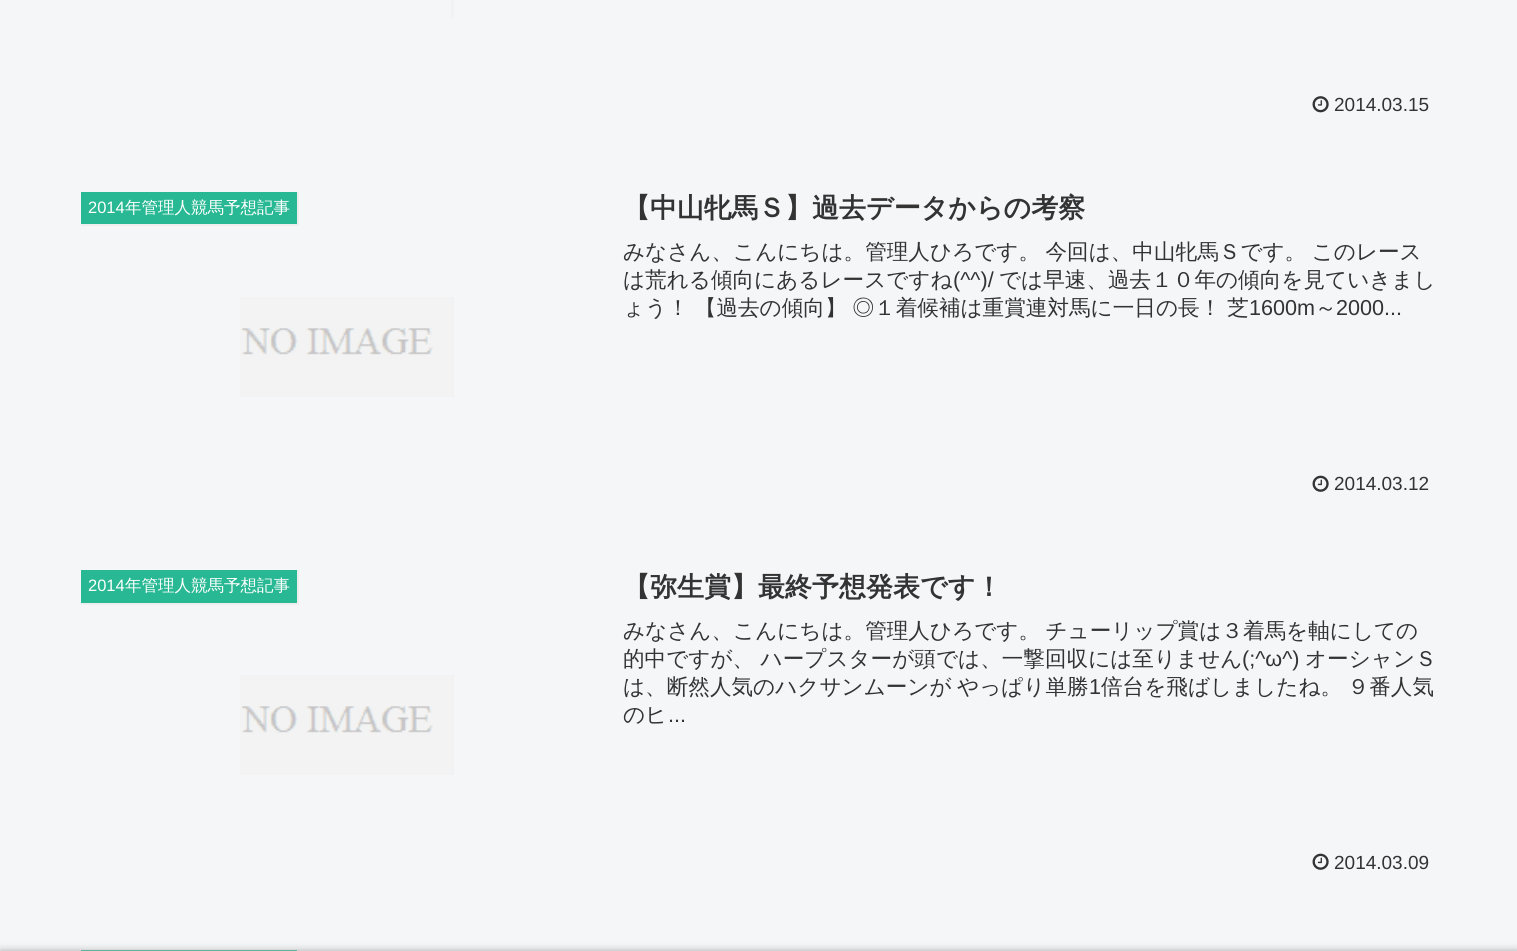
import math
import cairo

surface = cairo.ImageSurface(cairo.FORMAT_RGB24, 1517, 951)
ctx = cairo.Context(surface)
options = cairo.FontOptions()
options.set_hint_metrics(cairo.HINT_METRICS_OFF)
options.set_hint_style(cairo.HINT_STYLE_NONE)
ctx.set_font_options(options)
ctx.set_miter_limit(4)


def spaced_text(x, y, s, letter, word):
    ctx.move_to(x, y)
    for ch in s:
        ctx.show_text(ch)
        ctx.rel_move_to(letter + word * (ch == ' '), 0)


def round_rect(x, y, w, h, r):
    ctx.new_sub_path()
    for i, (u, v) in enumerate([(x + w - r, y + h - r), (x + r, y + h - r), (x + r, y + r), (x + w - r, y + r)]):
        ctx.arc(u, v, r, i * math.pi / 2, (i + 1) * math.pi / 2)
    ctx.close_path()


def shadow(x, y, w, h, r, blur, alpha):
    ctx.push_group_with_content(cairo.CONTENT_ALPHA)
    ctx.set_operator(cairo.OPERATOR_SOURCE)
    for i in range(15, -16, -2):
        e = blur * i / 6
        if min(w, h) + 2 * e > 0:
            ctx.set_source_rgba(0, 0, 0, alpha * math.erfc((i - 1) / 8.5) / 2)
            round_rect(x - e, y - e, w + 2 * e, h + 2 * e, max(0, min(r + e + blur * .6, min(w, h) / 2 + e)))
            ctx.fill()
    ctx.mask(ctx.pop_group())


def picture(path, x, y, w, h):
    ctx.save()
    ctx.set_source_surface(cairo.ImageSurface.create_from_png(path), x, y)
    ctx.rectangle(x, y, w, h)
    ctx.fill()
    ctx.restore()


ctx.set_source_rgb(0.957, 0.961, 0.969)
ctx.paint()
ctx.set_source_rgb(0.949, 0.949, 0.949)
ctx.rectangle(451, 0, 3, 17)
ctx.fill()
picture("img1.png", 1312, 96, 17, 17)
ctx.select_font_face("Liberation Sans")
ctx.set_font_size(19)
ctx.set_source_rgb(0.2, 0.2, 0.2)
ctx.move_to(1334, 111)
ctx.show_text("2014.03.15")
ctx.set_source_rgb(0.157, 0.722, 0.576)
ctx.rectangle(81, 192, 216, 32)
ctx.fill()
ctx.set_source_rgb(0.933, 0.933, 0.933)
ctx.rectangle(297, 192, 2, 33)
ctx.fill()
ctx.rectangle(81, 224, 218, 2)
ctx.fill()
ctx.set_font_size(16.5)
ctx.set_source_rgb(1, 1, 1)
ctx.move_to(88, 213)
ctx.show_text("2014")
ctx.select_font_face("WenQuanYi Zen Hei Medium")
ctx.move_to(125, 213)
ctx.show_text("年管理人競馬予想記事")
picture("img2.png", 240, 297, 214, 100)
ctx.select_font_face("WenQuanYi Zen Hei", cairo.FONT_SLANT_NORMAL, cairo.FONT_WEIGHT_BOLD)
ctx.set_font_size(27)
ctx.set_source_rgb(0.2, 0.2, 0.2)
ctx.move_to(623, 217)
ctx.show_text("【中山牝馬Ｓ】過去データからの考察")
ctx.select_font_face("WenQuanYi Zen Hei Medium")
ctx.set_font_size(21.6)
spaced_text(623, 259, "みなさん、こんにちは。管理人ひろです。 今回は、中山牝馬Ｓです。 このレース", 0, -1)
ctx.move_to(623, 287)
ctx.show_text("は荒れる傾向にあるレースですね")
ctx.select_font_face("Liberation Sans")
ctx.move_to(953, 287)
ctx.show_text("(^^)/")
ctx.select_font_face("WenQuanYi Zen Hei Medium")
ctx.move_to(999, 287)
ctx.show_text("では早速、過去１０年の傾向を見ていきまし")
spaced_text(623, 315, "ょう！ 【過去の傾向】 ◎１着候補は重賞連対馬に一日の長！ 芝", 0, -0.5)
ctx.select_font_face("Liberation Sans")
ctx.move_to(1249, 315)
ctx.show_text("1600m")
ctx.select_font_face("WenQuanYi Zen Hei Medium")
ctx.move_to(1315, 315)
ctx.show_text("～")
ctx.select_font_face("Liberation Sans")
ctx.move_to(1336, 315)
ctx.show_text("2000...")
picture("img3.png", 1312, 475, 17, 17)
ctx.set_font_size(19)
ctx.move_to(1334, 490)
ctx.show_text("2014.03.12")
ctx.set_source_rgb(0.157, 0.722, 0.576)
ctx.rectangle(81, 570, 216, 33)
ctx.fill()
ctx.set_source_rgb(0.933, 0.933, 0.933)
ctx.rectangle(297, 570, 2, 35)
ctx.fill()
ctx.rectangle(81, 603, 218, 2)
ctx.fill()
ctx.set_font_size(16.5)
ctx.set_source_rgb(1, 1, 1)
ctx.move_to(88, 591)
ctx.show_text("2014")
ctx.select_font_face("WenQuanYi Zen Hei Medium")
ctx.move_to(125, 591)
ctx.show_text("年管理人競馬予想記事")
picture("img2.png", 240, 675, 214, 100)
ctx.select_font_face("WenQuanYi Zen Hei", cairo.FONT_SLANT_NORMAL, cairo.FONT_WEIGHT_BOLD)
ctx.set_font_size(27)
ctx.set_source_rgb(0.2, 0.2, 0.2)
ctx.move_to(623, 596)
ctx.show_text("【弥生賞】最終予想発表です！")
ctx.select_font_face("WenQuanYi Zen Hei Medium")
ctx.set_font_size(21.6)
spaced_text(623, 638, "みなさん、こんにちは。管理人ひろです。 チューリップ賞は３着馬を軸にしての", 0, -1)
ctx.move_to(623, 666)
ctx.show_text("的中ですが、 ハープスターが頭では、一撃回収には至りません")
ctx.select_font_face("Liberation Sans")
ctx.move_to(1242, 666)
ctx.show_text("(;^ω^)")
ctx.select_font_face("WenQuanYi Zen Hei Medium")
ctx.move_to(1305, 666)
ctx.show_text("オーシャンＳ")
spaced_text(623, 694, "は、断然人気のハクサンムーンが やっぱり単勝", 0, -1)
ctx.select_font_face("Liberation Sans")
ctx.move_to(1089, 694)
ctx.show_text("1")
ctx.select_font_face("WenQuanYi Zen Hei Medium")
spaced_text(1101, 694, "倍台を飛ばしましたね。 ９番人気", 0, -1)
ctx.move_to(623, 722)
ctx.show_text("のヒ")
ctx.select_font_face("Liberation Sans")
ctx.move_to(668, 722)
ctx.show_text("...")
picture("img3.png", 1312, 853, 17, 17)
ctx.set_font_size(19)
ctx.move_to(1334, 869)
ctx.show_text("2014.03.09")
ctx.set_source_rgb(0.157, 0.722, 0.576)
ctx.rectangle(81, 950, 218, 1)
ctx.fill()
ctx.set_source_rgb(0.933, 0.933, 0.933)
ctx.rectangle(297, 950, 2, 1)
ctx.fill()
ctx.set_source_rgb(0.663, 0.663, 0.663)
shadow(0, 951, 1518, 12, 0, 4, 1)
surface.write_to_png("page.png")
